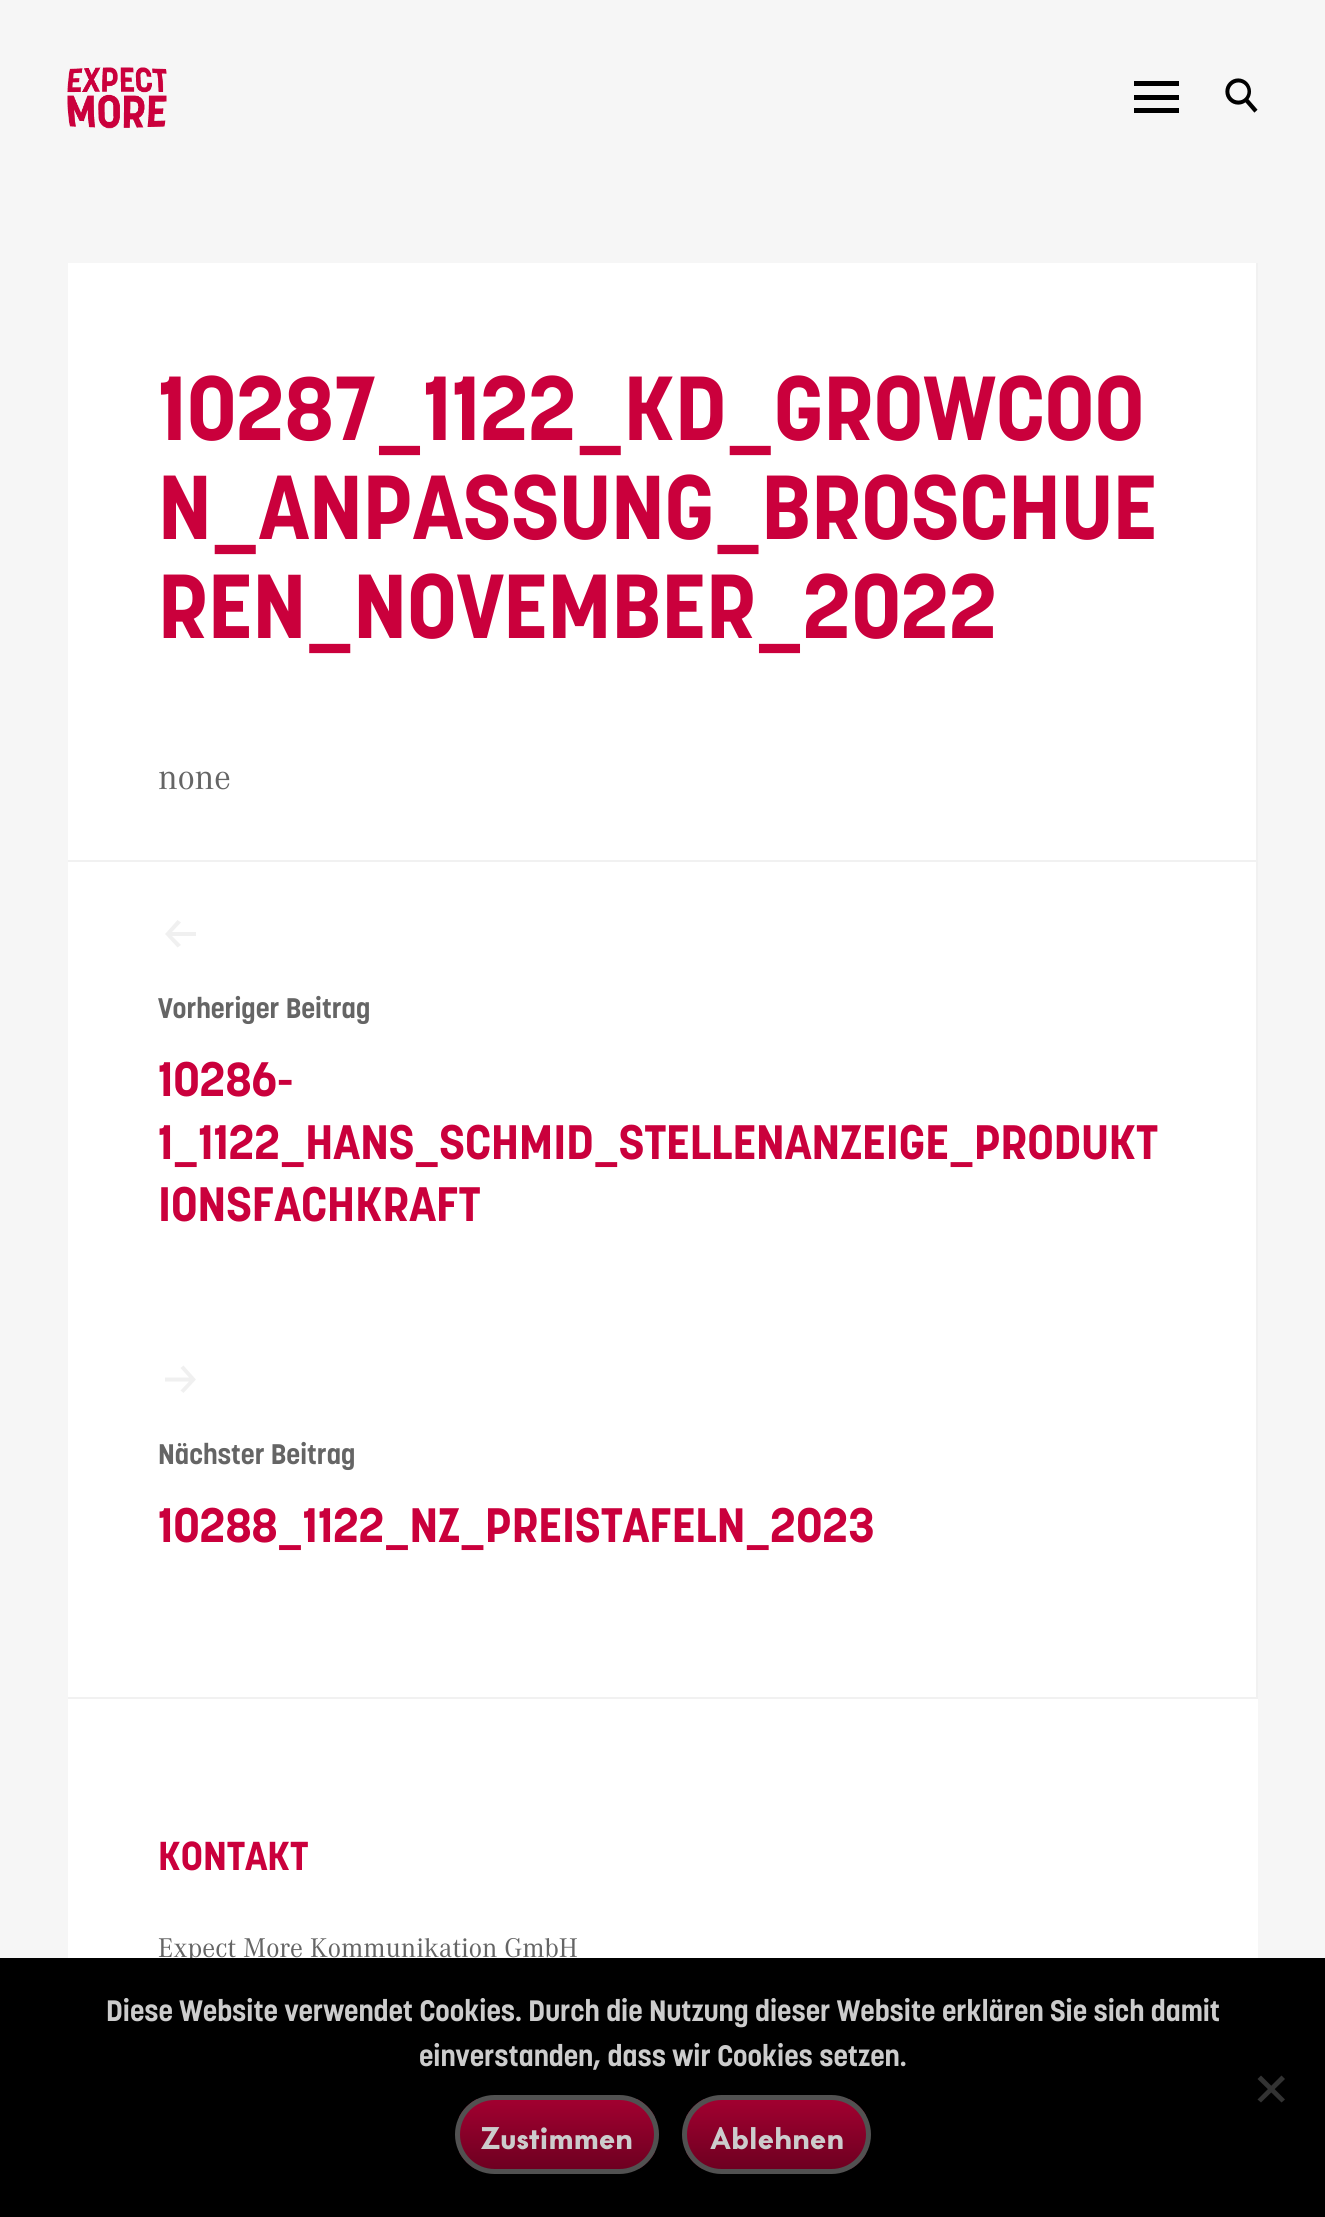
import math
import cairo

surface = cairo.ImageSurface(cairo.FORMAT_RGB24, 1325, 2217)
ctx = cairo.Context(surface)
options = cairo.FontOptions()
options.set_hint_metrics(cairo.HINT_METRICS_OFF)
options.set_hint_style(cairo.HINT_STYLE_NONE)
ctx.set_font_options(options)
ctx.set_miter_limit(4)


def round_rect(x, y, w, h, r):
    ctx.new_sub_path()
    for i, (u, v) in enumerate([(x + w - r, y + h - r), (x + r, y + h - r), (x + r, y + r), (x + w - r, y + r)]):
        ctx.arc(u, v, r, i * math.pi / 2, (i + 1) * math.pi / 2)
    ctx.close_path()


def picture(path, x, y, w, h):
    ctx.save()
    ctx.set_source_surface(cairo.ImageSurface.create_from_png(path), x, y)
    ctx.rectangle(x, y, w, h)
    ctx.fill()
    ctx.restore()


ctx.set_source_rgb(0.961, 0.961, 0.961)
ctx.paint()
picture("img1.png", 67, 67, 100, 62)
ctx.set_source_rgb(0, 0, 0)
ctx.rectangle(1134, 95, 45, 5)
ctx.fill()
ctx.rectangle(1134, 81, 45, 5)
ctx.fill()
ctx.rectangle(1134, 108, 45, 5)
ctx.fill()
picture("img2.png", 1225, 78, 33, 35)
ctx.set_source_rgb(1, 1, 1)
ctx.rectangle(68, 263, 1190, 1695)
ctx.fill()
ctx.set_source_rgb(0.945, 0.945, 0.945)
ctx.rectangle(1256, 263, 2, 1436)
ctx.fill()
ctx.rectangle(68, 1697, 1190, 2)
ctx.fill()
ctx.select_font_face("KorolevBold", cairo.FONT_SLANT_NORMAL, cairo.FONT_WEIGHT_BOLD)
ctx.set_font_size(90)
ctx.set_source_rgb(0.792, 0, 0.235)
ctx.move_to(158, 440)
ctx.show_text("10287_1122_KD_GROWCOO")
ctx.move_to(158, 539)
ctx.show_text("N_ANPASSUNG_BROSCHUE")
ctx.move_to(158, 638)
ctx.show_text("REN_NOVEMBER_2022")
ctx.select_font_face("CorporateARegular")
ctx.set_font_size(36)
ctx.set_source_rgb(0.396, 0.396, 0.396)
ctx.move_to(158, 789)
ctx.show_text("none")
ctx.set_source_rgb(0.945, 0.945, 0.945)
ctx.rectangle(68, 860, 1188, 2)
ctx.fill()
ctx.set_source_rgb(0.941, 0.941, 0.941)
ctx.new_path()
ctx.move_to(165.5, 933.5)
ctx.line_to(177.5, 920)
ctx.line_to(181, 922.5)
ctx.line_to(172, 932)
ctx.line_to(196, 932)
ctx.line_to(196, 936)
ctx.line_to(172, 936)
ctx.line_to(181, 945)
ctx.line_to(177.5, 947.5)
ctx.line_to(165.5, 934.5)
ctx.line_to(165, 934)
ctx.close_path()
ctx.fill()
ctx.select_font_face("KorolevBold", cairo.FONT_SLANT_NORMAL, cairo.FONT_WEIGHT_BOLD)
ctx.set_font_size(28.1)
ctx.set_source_rgb(0.396, 0.396, 0.396)
ctx.move_to(158, 1018)
ctx.show_text("Vorheriger Beitrag")
ctx.set_font_size(47.9)
ctx.set_source_rgb(0.792, 0, 0.235)
ctx.move_to(158, 1096)
ctx.show_text("10286-")
ctx.move_to(158, 1159)
ctx.show_text("1_1122_HANS_SCHMID_STELLENANZEIGE_PRODUKT")
ctx.move_to(158, 1221)
ctx.show_text("IONSFACHKRAFT")
ctx.set_source_rgb(0.941, 0.941, 0.941)
ctx.new_path()
ctx.move_to(195.5, 1379)
ctx.line_to(183.5, 1365.5)
ctx.line_to(180.5, 1368)
ctx.line_to(189, 1377.5)
ctx.line_to(165, 1377.5)
ctx.line_to(165, 1381.5)
ctx.line_to(189, 1381.5)
ctx.line_to(180.5, 1390.5)
ctx.line_to(183.5, 1393)
ctx.line_to(195.5, 1380)
ctx.line_to(196, 1379.5)
ctx.close_path()
ctx.fill()
ctx.set_font_size(28.1)
ctx.set_source_rgb(0.396, 0.396, 0.396)
ctx.move_to(158, 1464)
ctx.show_text("Nächster Beitrag")
ctx.set_font_size(47.9)
ctx.set_source_rgb(0.792, 0, 0.235)
ctx.move_to(158, 1542)
ctx.show_text("10288_1122_NZ_PREISTAFELN_2023")
ctx.set_font_size(40)
ctx.move_to(158, 1870)
ctx.show_text("KONTAKT")
ctx.select_font_face("CorporateARegular")
ctx.set_font_size(28.1)
ctx.set_source_rgb(0.396, 0.396, 0.396)
ctx.move_to(158, 1957)
ctx.show_text("Expect More Kommunikation GmbH")
ctx.set_source_rgb(0, 0, 0)
ctx.rectangle(0, 1958, 1325, 259)
ctx.fill()
ctx.select_font_face("KorolevBold", cairo.FONT_SLANT_NORMAL, cairo.FONT_WEIGHT_BOLD)
ctx.set_font_size(29.25)
ctx.set_source_rgb(0.8, 0.8, 0.8)
ctx.move_to(106, 2021)
ctx.show_text("Diese Website verwendet Cookies. Durch die Nutzung dieser Website erklären Sie sich damit")
ctx.move_to(419, 2066)
ctx.show_text("einverstanden, dass wir Cookies setzen.")
ctx.set_source_rgb(0.2, 0.2, 0.2)
ctx.new_path()
ctx.move_to(1281.5, 2075.5)
ctx.line_to(1285, 2079)
ctx.line_to(1261, 2102.5)
ctx.line_to(1257.5, 2099.5)
ctx.close_path()
ctx.fill()
ctx.new_path()
ctx.move_to(1257.5, 2079)
ctx.line_to(1261, 2075.5)
ctx.line_to(1285, 2099.5)
ctx.line_to(1281.5, 2102.5)
ctx.close_path()
ctx.fill()
ctx.save()
round_rect(455, 2095, 204, 79, 39.5)
ctx.clip()
gradient = cairo.LinearGradient(557, 2099, 557, 2169)
gradient.add_color_stop_rgba(0, 0.635, 0, 0.188, 1)
gradient.add_color_stop_rgba(1, 0.431, 0, 0.129, 1)
ctx.set_source(gradient)
ctx.rectangle(459, 2099, 196, 70)
ctx.fill()
ctx.restore()
round_rect(457.5, 2097.5, 199, 74, 37)
ctx.set_source_rgb(0.318, 0.318, 0.318)
ctx.set_line_width(5)
ctx.stroke()
ctx.select_font_face("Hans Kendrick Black")
ctx.set_source_rgb(0.8, 0.8, 0.8)
ctx.move_to(481, 2149)
ctx.show_text("Zustimmen")
ctx.save()
round_rect(682, 2095, 189, 79, 39.5)
ctx.clip()
gradient = cairo.LinearGradient(776, 2099, 776, 2169)
gradient.add_color_stop_rgba(0, 0.635, 0, 0.188, 1)
gradient.add_color_stop_rgba(1, 0.431, 0, 0.129, 1)
ctx.set_source(gradient)
ctx.rectangle(686, 2099, 180, 70)
ctx.fill()
ctx.restore()
round_rect(684.5, 2097.5, 184, 74, 37)
ctx.set_source_rgb(0.318, 0.318, 0.318)
ctx.stroke()
ctx.set_source_rgb(0.8, 0.8, 0.8)
ctx.move_to(710, 2149)
ctx.show_text("Ablehnen")
surface.write_to_png("page.png")
